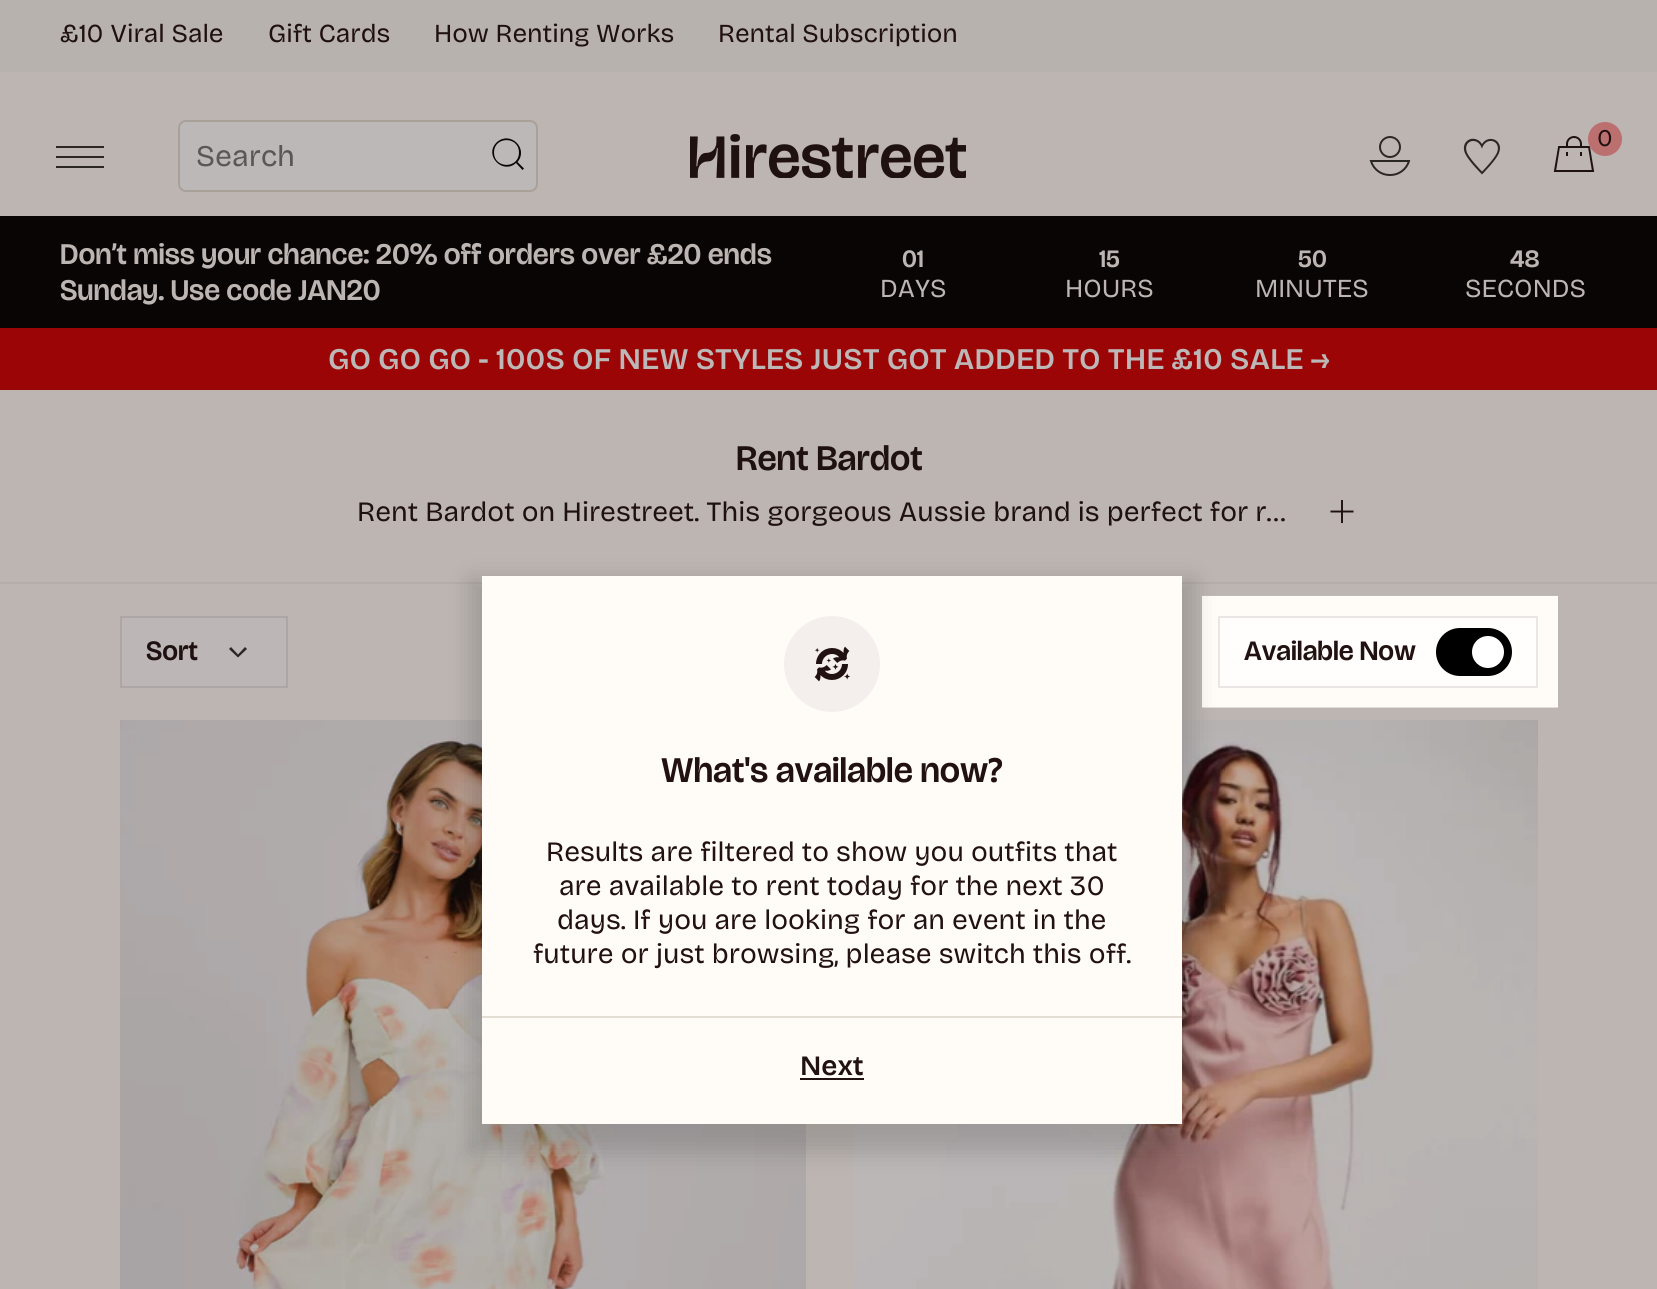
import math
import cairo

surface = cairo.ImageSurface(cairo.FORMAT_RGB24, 1657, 1289)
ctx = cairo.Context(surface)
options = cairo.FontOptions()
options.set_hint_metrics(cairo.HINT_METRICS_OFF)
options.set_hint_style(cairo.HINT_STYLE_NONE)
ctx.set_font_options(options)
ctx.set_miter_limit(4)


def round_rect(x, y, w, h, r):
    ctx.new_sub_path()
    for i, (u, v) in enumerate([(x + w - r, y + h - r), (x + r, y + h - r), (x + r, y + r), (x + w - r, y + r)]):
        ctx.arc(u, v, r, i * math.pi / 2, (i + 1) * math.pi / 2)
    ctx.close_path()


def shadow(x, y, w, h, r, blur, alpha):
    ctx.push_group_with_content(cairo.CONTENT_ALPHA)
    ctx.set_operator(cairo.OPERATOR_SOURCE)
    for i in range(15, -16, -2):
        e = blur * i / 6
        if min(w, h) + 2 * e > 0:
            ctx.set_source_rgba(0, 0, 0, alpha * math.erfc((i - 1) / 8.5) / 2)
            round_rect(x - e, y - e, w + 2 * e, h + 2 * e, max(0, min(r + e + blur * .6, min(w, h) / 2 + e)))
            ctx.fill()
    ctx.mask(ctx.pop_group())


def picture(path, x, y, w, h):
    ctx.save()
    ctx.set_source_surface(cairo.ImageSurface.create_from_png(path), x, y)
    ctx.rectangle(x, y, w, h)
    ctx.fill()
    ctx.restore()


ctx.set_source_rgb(1, 0.984, 0.965)
ctx.paint()
ctx.set_source_rgb(0.98, 0.961, 0.945)
ctx.rectangle(0, 0, 1657, 72)
ctx.fill()
ctx.select_font_face("Bricolage Grotesque")
ctx.set_font_size(26)
ctx.set_source_rgb(0.129, 0.067, 0.067)
ctx.move_to(60, 42)
ctx.show_text("£10 Viral Sale")
ctx.move_to(268, 42)
ctx.show_text("Gift Cards")
ctx.move_to(434, 42)
ctx.show_text("How Renting Works")
ctx.move_to(718, 42)
ctx.show_text("Rental Subscription")
ctx.set_source_rgb(0.192, 0.188, 0.18)
ctx.new_path()
ctx.move_to(104, 148)
ctx.line_to(56, 148)
ctx.line_to(56, 146)
ctx.line_to(104, 146)
ctx.close_path()
ctx.move_to(104, 156)
ctx.line_to(56, 156)
ctx.line_to(56, 158)
ctx.line_to(104, 158)
ctx.close_path()
ctx.move_to(104, 166)
ctx.line_to(56, 166)
ctx.line_to(56, 168)
ctx.line_to(104, 168)
ctx.close_path()
ctx.fill()
ctx.set_source_rgb(1, 1, 1)
round_rect(179, 121, 358, 70, 7)
ctx.fill_preserve()
ctx.set_source_rgb(0.894, 0.867, 0.827)
ctx.stroke()
ctx.set_font_size(30)
ctx.set_source_rgb(0.459, 0.459, 0.459)
ctx.move_to(196, 166)
ctx.show_text("Search")
ctx.set_source_rgb(0, 0, 0)
ctx.new_path()
ctx.move_to(524, 168.5)
ctx.line_to(517.5, 162)
ctx.curve_to(529, 148.5, 510, 130, 496.5, 142.5)
ctx.curve_to(483.5, 155.5, 503, 175, 516, 163)
ctx.line_to(522.5, 170)
ctx.close_path()
ctx.move_to(494, 152.5)
ctx.curve_to(494, 136, 519, 136, 519, 152.5)
ctx.curve_to(519, 169, 494, 169, 494, 152.5)
ctx.close_path()
ctx.fill()
picture("img1.png", 690, 134, 276, 44)
picture("img2.png", 1369, 136, 42, 40)
picture("img3.png", 1463, 138, 37, 37)
picture("img4.png", 1553, 136, 42, 36)
ctx.set_source_rgb(1, 0.592, 0.592)
ctx.arc(1605, 139, 17, 0, 2 * math.pi)
ctx.fill()
ctx.set_font_size(24)
ctx.set_source_rgb(0.129, 0.067, 0.067)
ctx.move_to(1597, 146)
ctx.show_text("0")
ctx.set_source_rgb(0, 0, 0)
ctx.rectangle(0, 216, 1657, 112)
ctx.fill()
ctx.select_font_face("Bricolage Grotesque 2 SemiBold")
ctx.set_font_size(30)
ctx.set_source_rgb(1, 0.984, 0.965)
ctx.move_to(60, 264)
ctx.show_text("Don’t miss your chance: 20% off orders over £20 ends")
ctx.move_to(60, 300)
ctx.show_text("Sunday. Use code JAN20")
ctx.set_font_size(25)
ctx.move_to(902, 267)
ctx.show_text("01")
ctx.select_font_face("Bricolage Grotesque")
ctx.set_font_size(26)
ctx.move_to(880, 297)
ctx.show_text("DAYS")
ctx.select_font_face("Bricolage Grotesque 2 SemiBold")
ctx.set_font_size(25)
ctx.move_to(1099, 267)
ctx.show_text("15")
ctx.select_font_face("Bricolage Grotesque")
ctx.set_font_size(26)
ctx.move_to(1065, 297)
ctx.show_text("HOURS")
ctx.select_font_face("Bricolage Grotesque 2 SemiBold")
ctx.set_font_size(25)
ctx.move_to(1298, 267)
ctx.show_text("50")
ctx.select_font_face("Bricolage Grotesque")
ctx.set_font_size(26)
ctx.move_to(1255, 297)
ctx.show_text("MINUTES")
ctx.select_font_face("Bricolage Grotesque 2 SemiBold")
ctx.set_font_size(25)
ctx.move_to(1510, 267)
ctx.show_text("48")
ctx.select_font_face("Bricolage Grotesque")
ctx.set_font_size(26)
ctx.move_to(1465, 297)
ctx.show_text("SECONDS")
ctx.set_source_rgb(0.824, 0, 0)
ctx.rectangle(0, 328, 1657, 62)
ctx.fill()
ctx.select_font_face("Bricolage Grotesque SemiBold")
ctx.set_font_size(30)
ctx.set_source_rgb(1, 1, 1)
ctx.move_to(328, 369)
ctx.show_text("GO GO GO - 100S OF NEW STYLES JUST GOT ADDED TO THE £10 SALE →")
ctx.select_font_face("Bricolage Grotesque 2 SemiBold")
ctx.set_font_size(36)
ctx.set_source_rgb(0.129, 0.067, 0.067)
ctx.move_to(736, 470)
ctx.show_text("Rent Bardot")
ctx.select_font_face("Bricolage Grotesque")
ctx.set_font_size(28)
ctx.move_to(357, 521)
ctx.show_text("Rent Bardot on Hirestreet. This gorgeous Aussie brand is perfect for r…")
picture("img5.png", 1330, 500, 24, 24)
ctx.set_source_rgb(0.957, 0.937, 0.922)
ctx.rectangle(0, 582, 1657, 2)
ctx.fill()
ctx.set_source_rgb(1, 0.996, 0.988)
ctx.rectangle(121, 617, 166, 70)
ctx.fill_preserve()
ctx.set_source_rgb(0.914, 0.902, 0.894)
ctx.stroke()
ctx.select_font_face("Bricolage Grotesque 2 SemiBold")
ctx.set_source_rgb(0.129, 0.067, 0.067)
ctx.move_to(146, 660)
ctx.show_text("Sort")
ctx.set_source_rgb(0.188, 0.188, 0.18)
ctx.new_path()
ctx.move_to(238, 657.5)
ctx.line_to(229, 649)
ctx.line_to(231, 647)
ctx.line_to(238, 654.5)
ctx.line_to(245, 647)
ctx.line_to(247, 649)
ctx.close_path()
ctx.fill()
ctx.set_source_rgb(1, 0.996, 0.988)
ctx.rectangle(1219, 617, 318, 70)
ctx.fill_preserve()
ctx.set_source_rgb(0.914, 0.902, 0.894)
ctx.stroke()
ctx.set_source_rgb(0.129, 0.067, 0.067)
ctx.move_to(1244, 660)
ctx.show_text("Available Now")
ctx.set_source_rgb(0, 0, 0)
round_rect(1436, 628, 76, 48, 24)
ctx.fill()
ctx.set_source_rgb(1, 1, 1)
ctx.arc(1488, 652, 16, 0, 2 * math.pi)
ctx.fill()
picture("img6.png", 120, 720, 686, 569)
picture("img7.png", 854, 720, 684, 569)
picture("img8.png", 0, 0, 1657, 1289)
ctx.set_source_rgb(0, 0, 0)
shadow(470, 580, 724, 572, 0, 12, 0.15)
ctx.set_source_rgb(1, 0.984, 0.965)
ctx.rectangle(482, 576, 700, 548)
ctx.fill()
ctx.set_source_rgb(0.957, 0.937, 0.922)
ctx.arc(832, 664, 48, 0, 2 * math.pi)
ctx.fill()
picture("img9.png", 814, 646, 36, 36)
ctx.set_font_size(36)
ctx.set_source_rgb(0.129, 0.067, 0.067)
ctx.move_to(661, 782)
ctx.show_text("What's available now?")
ctx.select_font_face("Bricolage Grotesque")
ctx.set_font_size(28)
ctx.move_to(546, 861)
ctx.show_text("Results are filtered to show you outfits that")
ctx.move_to(559, 895)
ctx.show_text("are available to rent today for the next 30")
ctx.move_to(557, 929)
ctx.show_text("days. If you are looking for an event in the")
ctx.move_to(533, 963)
ctx.show_text("future or just browsing, please switch this off.")
ctx.set_source_rgb(0.894, 0.867, 0.827)
ctx.rectangle(482, 1016, 700, 2)
ctx.fill()
ctx.select_font_face("Bricolage Grotesque SemiBold")
ctx.set_source_rgb(0.129, 0.067, 0.067)
ctx.move_to(800, 1075)
ctx.show_text("Next")
ctx.rectangle(800, 1078, 64, 2)
ctx.fill()
surface.write_to_png("page.png")
